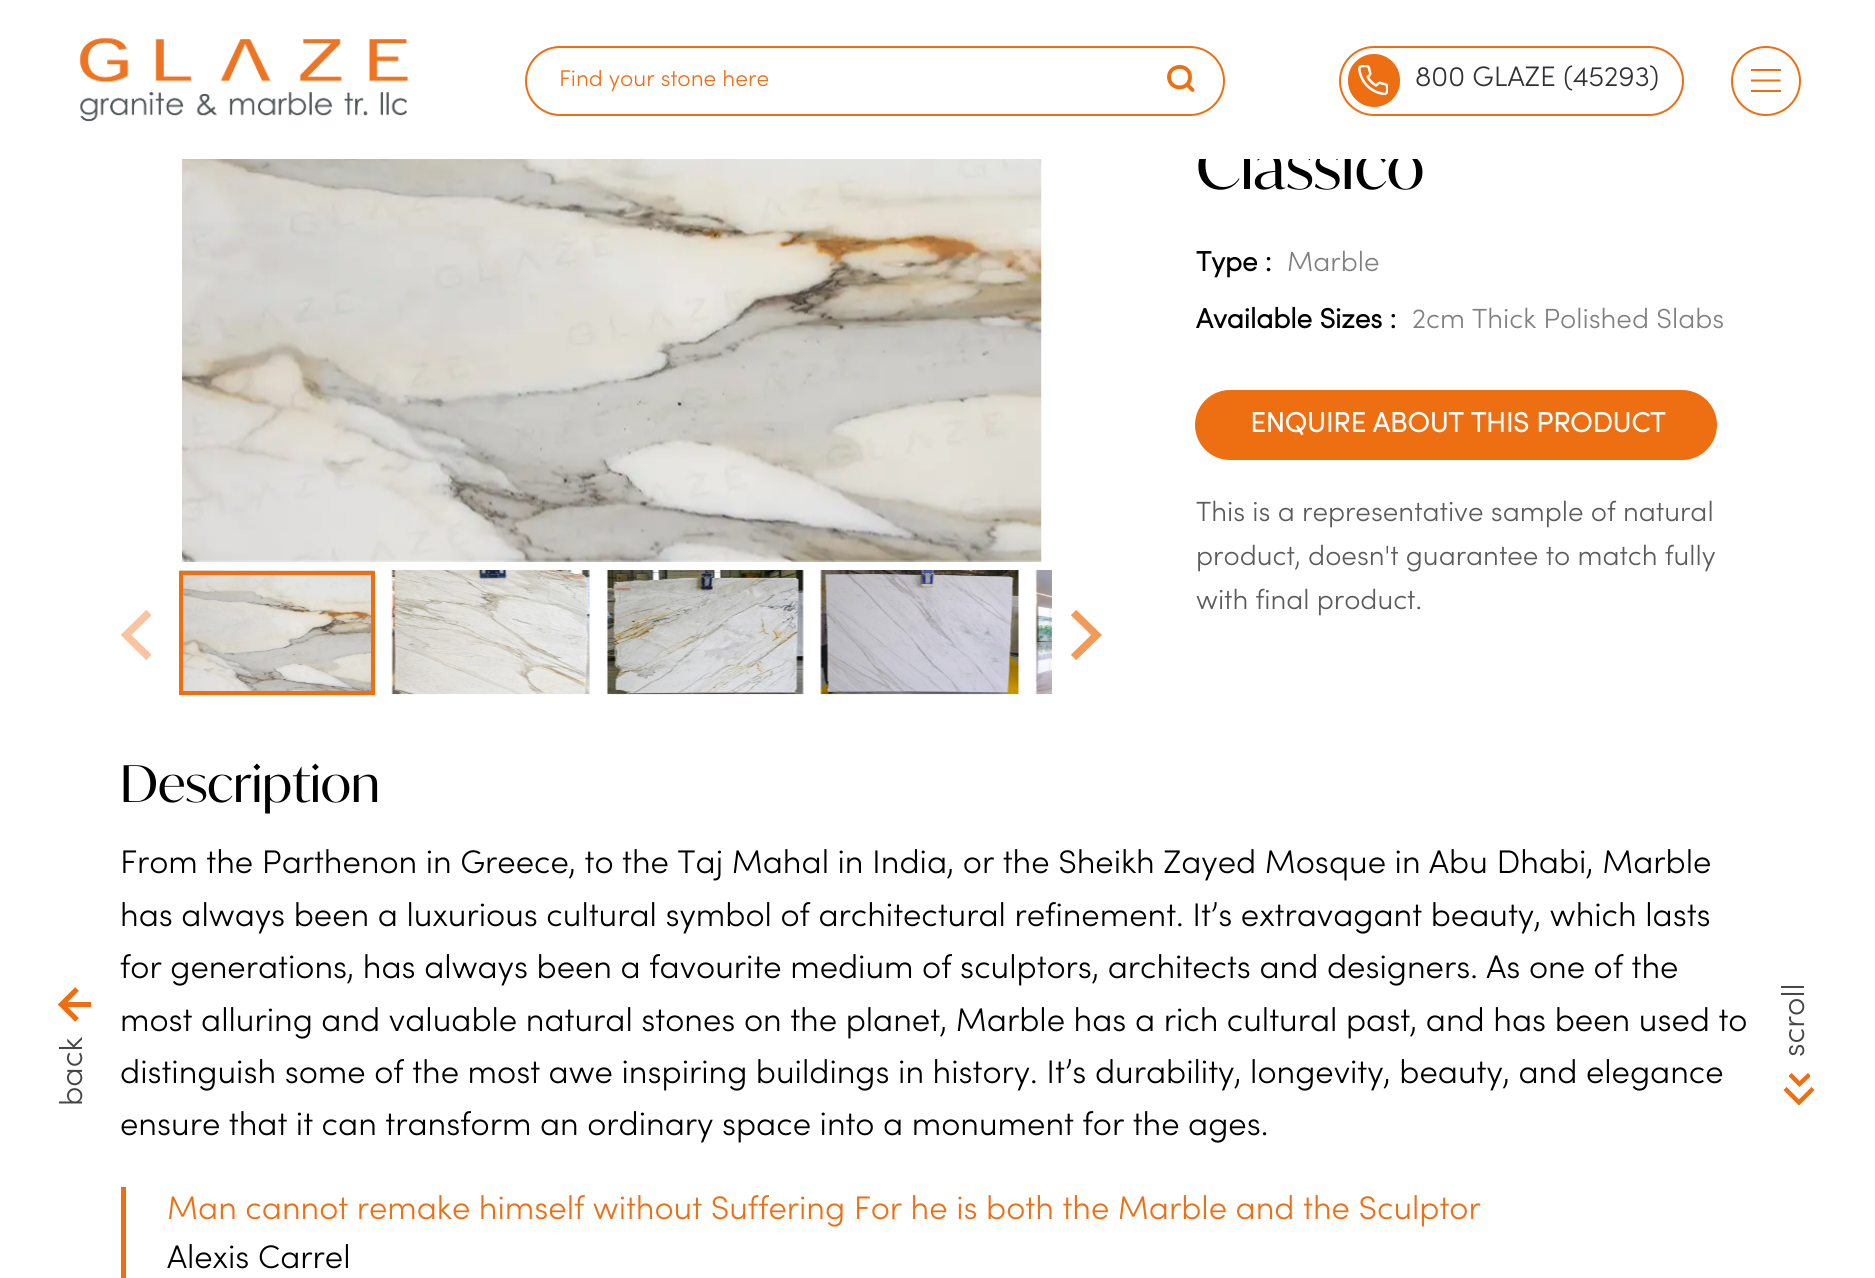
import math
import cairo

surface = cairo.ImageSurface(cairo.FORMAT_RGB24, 1875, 1278)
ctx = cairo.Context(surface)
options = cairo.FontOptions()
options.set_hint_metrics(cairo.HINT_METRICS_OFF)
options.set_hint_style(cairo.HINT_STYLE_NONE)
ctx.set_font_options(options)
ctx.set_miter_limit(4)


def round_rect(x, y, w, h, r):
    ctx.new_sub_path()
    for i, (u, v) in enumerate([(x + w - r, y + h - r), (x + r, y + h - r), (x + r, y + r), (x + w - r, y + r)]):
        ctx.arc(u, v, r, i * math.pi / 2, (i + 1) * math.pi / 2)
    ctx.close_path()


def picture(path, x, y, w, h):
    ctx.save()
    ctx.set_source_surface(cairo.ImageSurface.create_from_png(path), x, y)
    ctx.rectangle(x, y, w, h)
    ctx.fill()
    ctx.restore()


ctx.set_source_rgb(1, 1, 1)
ctx.paint()
ctx.select_font_face("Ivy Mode")
ctx.set_font_size(63)
ctx.set_source_rgb(0, 0, 0)
ctx.move_to(1196, 189)
ctx.show_text("Classico")
ctx.set_source_rgb(1, 1, 1)
ctx.rectangle(1199, 138, 219, 21)
ctx.fill()
picture("img1.png", 79, 38, 329, 84)
round_rect(526, 47, 698, 68, 34)
ctx.set_source_rgb(0.933, 0.431, 0.071)
ctx.stroke()
ctx.save()
ctx.rectangle(558, 70, 594, 23)
ctx.clip()
ctx.select_font_face("Sofia Light")
ctx.set_font_size(22.75)
ctx.move_to(559, 86)
ctx.show_text("Find your stone here")
ctx.restore()
ctx.new_path()
ctx.move_to(1190, 77)
ctx.curve_to(1190, 90.5, 1170, 91, 1169, 77.5)
ctx.curve_to(1168.5, 64, 1190, 63, 1190, 77)
ctx.close_path()
ctx.move_to(1192.5, 90)
ctx.line_to(1187, 84.5)
ctx.set_line_width(3.9)
ctx.set_line_cap(cairo.LINE_CAP_ROUND)
ctx.set_line_join(cairo.LINE_JOIN_ROUND)
ctx.stroke()
round_rect(1340, 47, 343, 68, 34)
ctx.set_line_width(2)
ctx.set_line_cap(cairo.LINE_CAP_BUTT)
ctx.set_line_join(cairo.LINE_JOIN_MITER)
ctx.stroke()
round_rect(1348, 54, 52, 53, 26)
ctx.fill()
picture("img2.png", 1358, 65, 30, 30)
ctx.select_font_face("Sofia Light")
ctx.set_font_size(28.25)
ctx.set_source_rgb(0.184, 0.192, 0.204)
ctx.move_to(1415, 86)
ctx.show_text("800 GLAZE (45293)")
ctx.new_path()
ctx.arc(1766, 81, 34, 0, 2 * math.pi)
ctx.set_source_rgb(0.933, 0.431, 0.071)
ctx.stroke()
ctx.rectangle(1751, 69, 30, 2)
ctx.fill()
ctx.new_path()
ctx.move_to(1751, 80.5)
ctx.line_to(1780.5, 80.5)
ctx.stroke()
ctx.rectangle(1751, 90, 30, 2)
ctx.fill()
picture("img3.png", 182, 159, 860, 403)
ctx.save()
ctx.rectangle(121, 609, 30, 53)
ctx.clip()
ctx.new_path()
ctx.move_to(149, 657.5)
ctx.line_to(126, 635)
ctx.line_to(149, 612.5)
ctx.set_source_rgb(0.973, 0.773, 0.627)
ctx.set_line_width(7.6)
ctx.stroke()
ctx.restore()
picture("img4.png", 179, 570, 196, 121)
ctx.rectangle(181, 573, 192, 120)
ctx.set_line_width(4)
ctx.stroke()
picture("img5.png", 391, 570, 200, 125)
picture("img6.png", 606, 570, 198, 125)
picture("img7.png", 820, 570, 199, 125)
picture("img8.png", 1035, 570, 17, 125)
ctx.new_path()
ctx.move_to(1073.5, 612.5)
ctx.line_to(1096.5, 635)
ctx.line_to(1073.5, 657.5)
ctx.set_source_rgb(0.953, 0.604, 0.349)
ctx.set_line_width(7.6)
ctx.stroke()
ctx.select_font_face("Sofia", cairo.FONT_SLANT_NORMAL, cairo.FONT_WEIGHT_BOLD)
ctx.set_font_size(27.75)
ctx.set_source_rgb(0, 0, 0)
ctx.move_to(1196, 271)
ctx.show_text("Type :")
ctx.select_font_face("Sofia Light")
ctx.set_source_rgb(0.502, 0.502, 0.502)
ctx.move_to(1287, 271)
ctx.show_text("Marble")
ctx.select_font_face("Sofia", cairo.FONT_SLANT_NORMAL, cairo.FONT_WEIGHT_BOLD)
ctx.set_source_rgb(0, 0, 0)
ctx.move_to(1196, 328)
ctx.show_text("Available Sizes :")
ctx.select_font_face("Sofia Light")
ctx.set_source_rgb(0.502, 0.502, 0.502)
ctx.move_to(1412, 328)
ctx.show_text("2cm Thick Polished Slabs")
ctx.set_source_rgb(0.933, 0.431, 0.071)
round_rect(1195, 390, 522, 70, 35)
ctx.fill()
ctx.select_font_face("Sofia", cairo.FONT_SLANT_NORMAL, cairo.FONT_WEIGHT_BOLD)
ctx.set_source_rgb(1, 1, 1)
ctx.move_to(1250, 432)
ctx.show_text("ENQUIRE ABOUT THIS PRODUCT")
ctx.select_font_face("Sofia Light")
ctx.set_source_rgb(0.357, 0.357, 0.357)
ctx.move_to(1196, 521)
ctx.show_text("This is a representative sample of natural")
ctx.move_to(1196, 565)
ctx.show_text("product, doesn't guarantee to match fully")
ctx.move_to(1196, 609)
ctx.show_text("with final product.")
ctx.select_font_face("Ivy Mode")
ctx.set_font_size(50.5)
ctx.set_source_rgb(0, 0, 0)
ctx.move_to(120, 802)
ctx.show_text("Description")
ctx.select_font_face("Sofia Light")
ctx.set_font_size(32.75)
ctx.move_to(120, 873)
ctx.show_text("From the Parthenon in Greece, to the Taj Mahal in India, or the Sheikh Zayed Mosque in Abu Dhabi, Marble")
ctx.move_to(120, 926)
ctx.show_text("has always been a luxurious cultural symbol of architectural refinement. It’s extravagant beauty, which lasts")
ctx.move_to(120, 978)
ctx.show_text("for generations, has always been a favourite medium of sculptors, architects and designers. As one of the")
ctx.move_to(120, 1031)
ctx.show_text("most alluring and valuable natural stones on the planet, Marble has a rich cultural past, and has been used to")
ctx.move_to(120, 1083)
ctx.show_text("distinguish some of the most awe inspiring buildings in history. It’s durability, longevity, beauty, and elegance")
ctx.move_to(120, 1135)
ctx.show_text("ensure that it can transform an ordinary space into a monument for the ages.")
ctx.set_source_rgb(0.933, 0.431, 0.071)
ctx.rectangle(121, 1187, 5, 91)
ctx.fill()
ctx.move_to(167, 1219)
ctx.show_text("Man cannot remake himself without Suffering For he is both the Marble and the Sculptor")
ctx.set_source_rgb(0, 0, 0)
ctx.move_to(167, 1268)
ctx.show_text("Alexis Carrel")
ctx.set_font_size(31.5)
ctx.set_source_rgb(0.267, 0.275, 0.282)
ctx.save()
ctx.translate(1804, 1057)
ctx.rotate(-90 * math.pi / 180)
ctx.move_to(0, 0)
ctx.show_text("scroll")
ctx.restore()
ctx.save()
ctx.rectangle(1789, 1073, 21, 14)
ctx.clip()
ctx.new_path()
ctx.move_to(1790, 1074.5)
ctx.line_to(1799.5, 1084)
ctx.line_to(1809.5, 1074.5)
ctx.set_source_rgb(0.933, 0.431, 0.071)
ctx.set_line_width(4.4)
ctx.stroke()
ctx.restore()
ctx.new_path()
ctx.move_to(1785, 1088.5)
ctx.line_to(1799, 1102.5)
ctx.line_to(1813, 1088.5)
ctx.set_source_rgb(0.933, 0.431, 0.071)
ctx.set_line_width(4.4)
ctx.stroke()
ctx.rectangle(63, 1002, 28, 5)
ctx.fill()
ctx.new_path()
ctx.move_to(77, 989)
ctx.line_to(61.5, 1004.5)
ctx.line_to(77, 1020)
ctx.set_line_width(5.2)
ctx.stroke()
ctx.set_source_rgb(0.267, 0.275, 0.282)
ctx.save()
ctx.translate(82, 1106)
ctx.rotate(-90 * math.pi / 180)
ctx.move_to(0, 0)
ctx.show_text("back")
ctx.restore()
surface.write_to_png("page.png")
